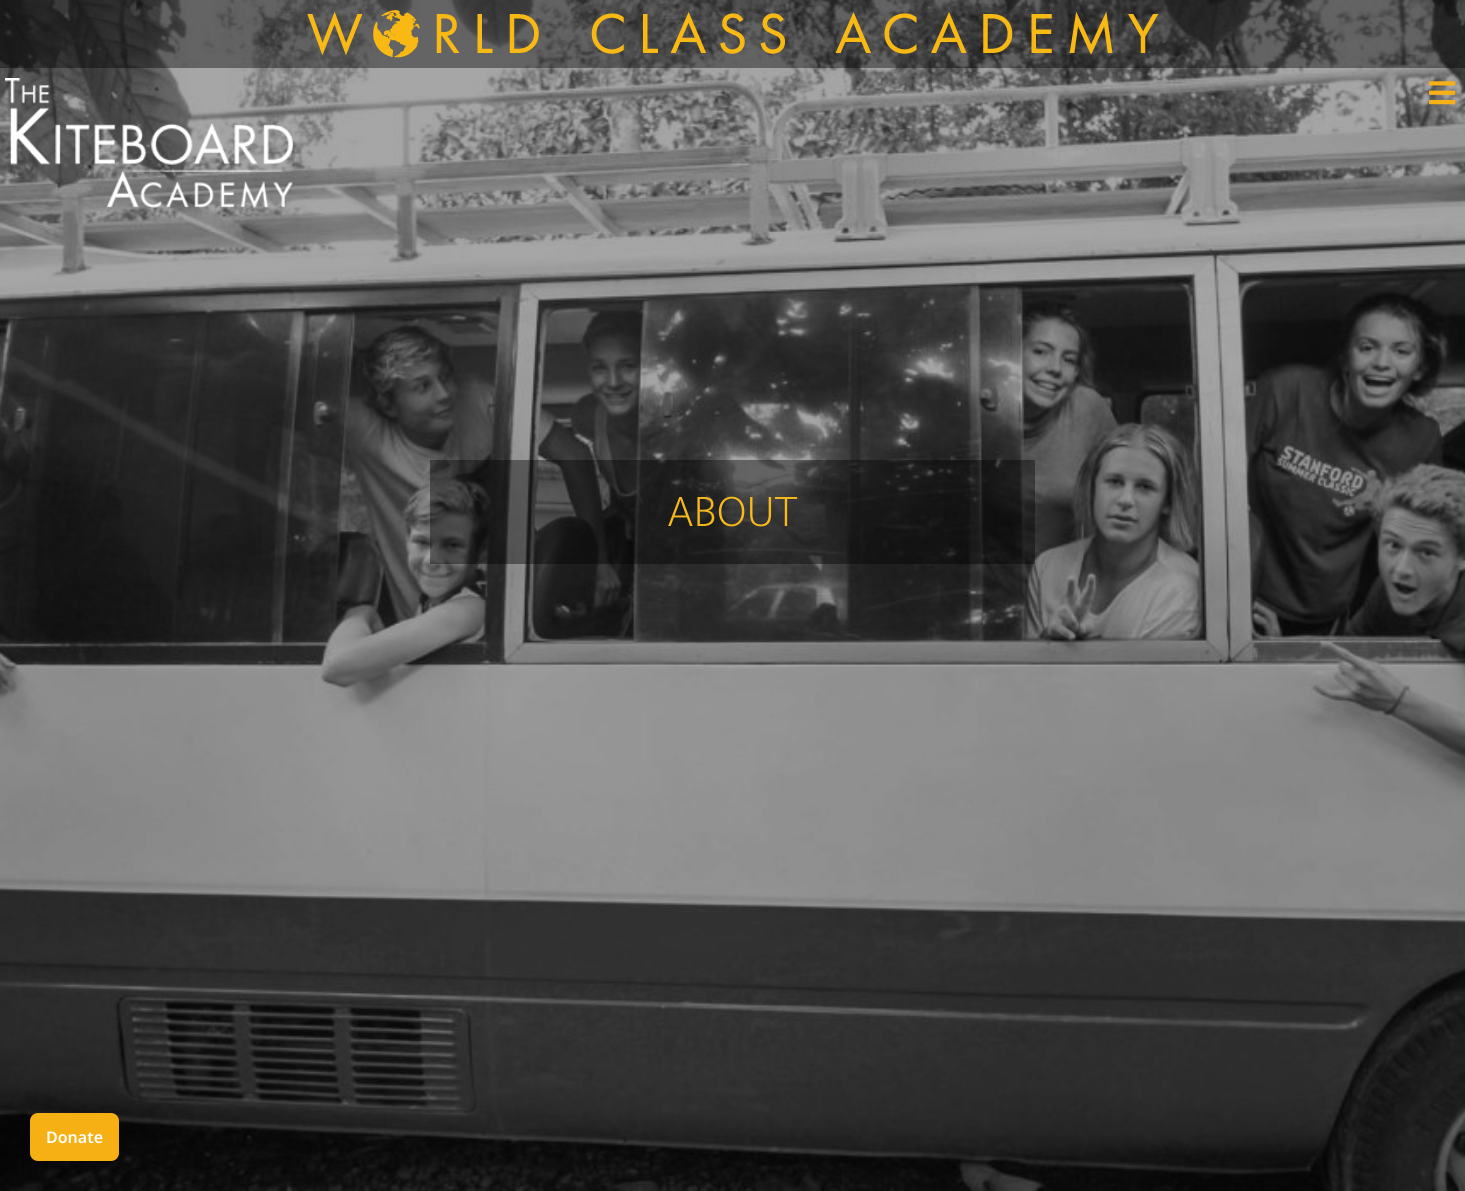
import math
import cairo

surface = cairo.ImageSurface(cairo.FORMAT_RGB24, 1465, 1191)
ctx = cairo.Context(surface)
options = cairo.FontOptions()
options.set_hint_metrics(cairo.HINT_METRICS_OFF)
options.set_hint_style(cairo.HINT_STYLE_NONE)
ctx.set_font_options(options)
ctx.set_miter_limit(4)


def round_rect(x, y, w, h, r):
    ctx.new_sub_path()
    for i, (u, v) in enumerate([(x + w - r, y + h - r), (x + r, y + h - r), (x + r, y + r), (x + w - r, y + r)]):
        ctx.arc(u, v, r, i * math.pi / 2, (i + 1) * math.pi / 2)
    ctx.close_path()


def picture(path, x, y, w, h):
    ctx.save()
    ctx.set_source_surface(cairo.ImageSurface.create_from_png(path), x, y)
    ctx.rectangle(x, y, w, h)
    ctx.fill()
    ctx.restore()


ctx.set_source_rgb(1, 1, 1)
ctx.paint()
picture("img4.png", 0, 0, 1465, 1191)
ctx.set_source_rgba(0, 0, 0, 0.4)
ctx.rectangle(0, 0, 1465, 68)
ctx.fill()
picture("img1.png", 307, 10, 852, 48)
picture("img2.png", 5, 78, 288, 130)
picture("img3.png", 1429, 81, 27, 24)
ctx.rectangle(430, 460, 605, 104)
ctx.fill()
ctx.select_font_face("Mukta ExtraLight")
ctx.set_font_size(46)
ctx.set_source_rgb(0.969, 0.725, 0.102)
ctx.move_to(667, 526)
ctx.show_text("ABOUT")
ctx.set_source_rgb(0.965, 0.69, 0.082)
round_rect(30, 1113, 89, 48, 8)
ctx.fill()
ctx.select_font_face("Noto Sans SemiBold")
ctx.set_font_size(16)
ctx.set_source_rgb(1, 1, 1)
ctx.move_to(46, 1143)
ctx.show_text("Donate")
surface.write_to_png("page.png")
